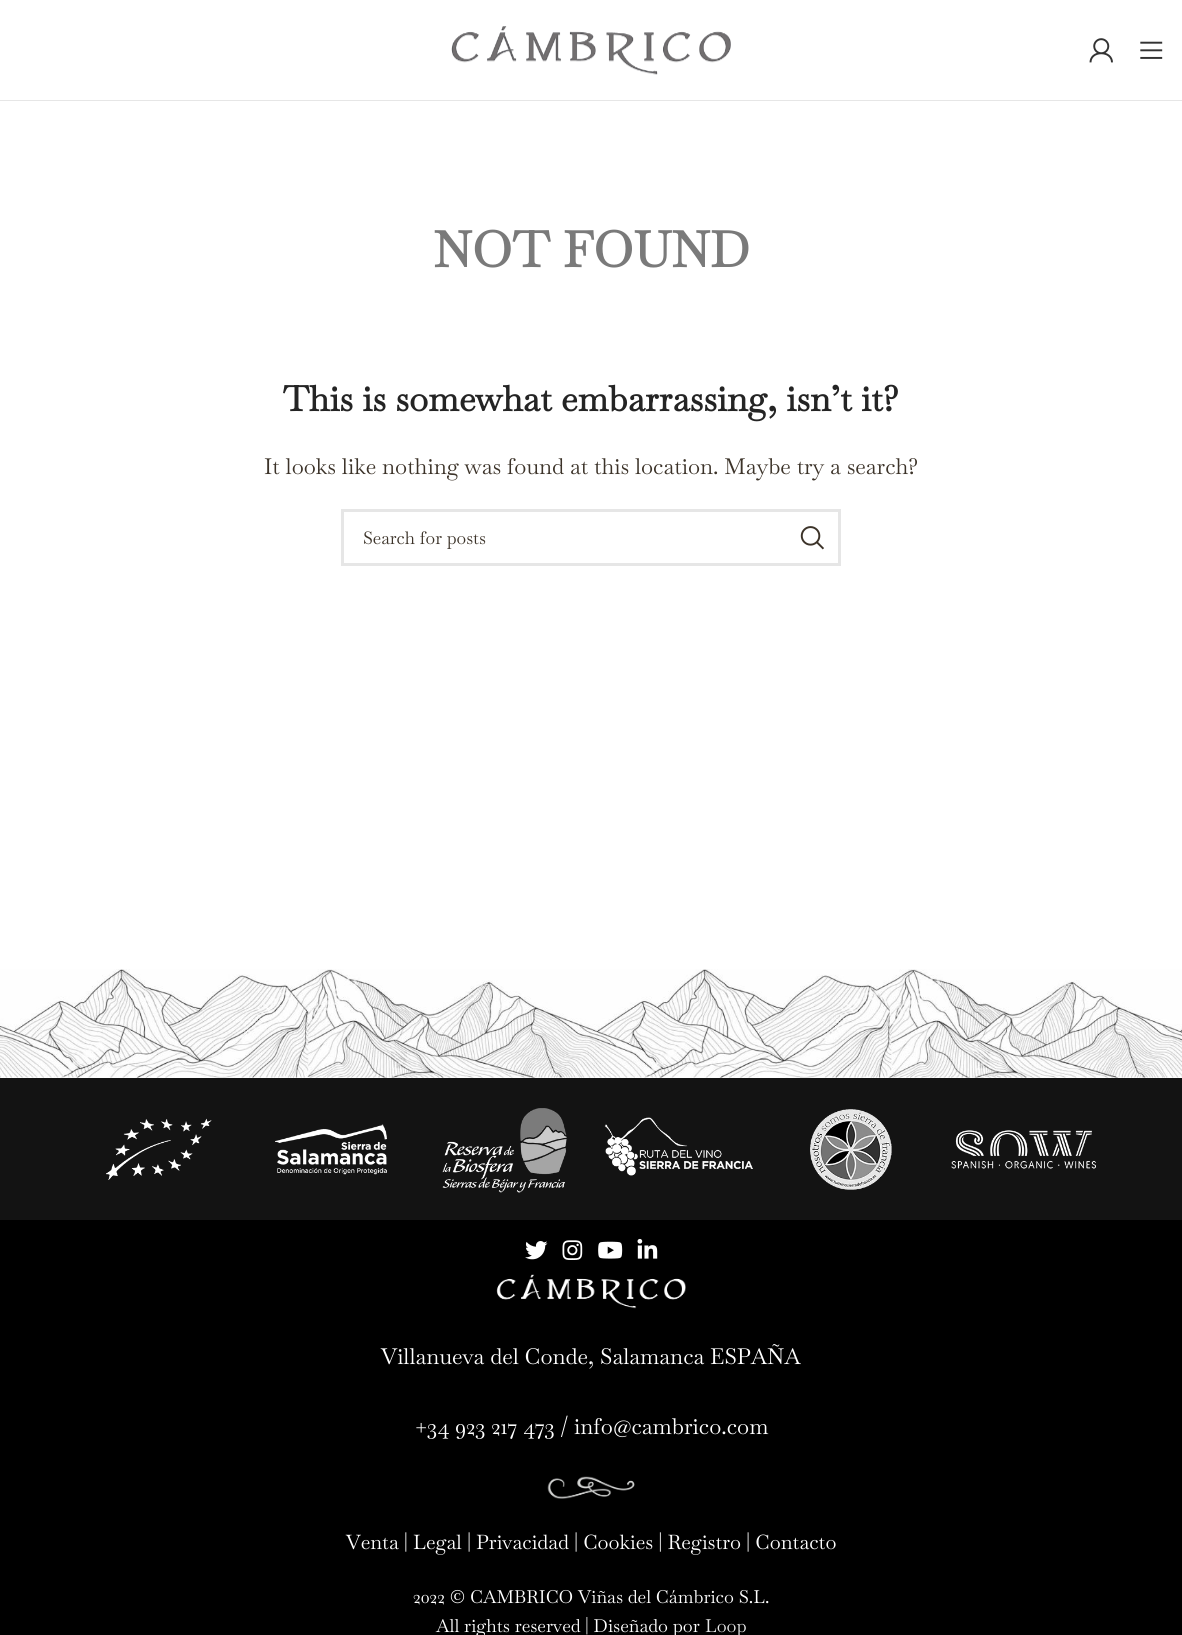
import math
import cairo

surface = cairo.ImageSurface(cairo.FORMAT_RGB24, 1182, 1635)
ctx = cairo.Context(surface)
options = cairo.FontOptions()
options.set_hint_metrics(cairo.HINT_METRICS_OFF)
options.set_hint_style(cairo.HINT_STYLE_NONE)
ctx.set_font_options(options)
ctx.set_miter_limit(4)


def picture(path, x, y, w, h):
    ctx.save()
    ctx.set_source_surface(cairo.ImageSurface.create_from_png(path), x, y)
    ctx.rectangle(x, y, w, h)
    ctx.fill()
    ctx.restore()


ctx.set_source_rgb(1, 1, 1)
ctx.paint()
ctx.set_source_rgb(0.902, 0.902, 0.902)
ctx.rectangle(0, 100, 1182, 1)
ctx.fill()
picture("img1.png", 451, 26, 280, 49)
picture("img2.png", 1089, 38, 24, 25)
picture("img3.png", 1140, 41, 23, 18)
ctx.select_font_face("Baskervville", cairo.FONT_SLANT_NORMAL, cairo.FONT_WEIGHT_BOLD)
ctx.set_font_size(49.75)
ctx.set_source_rgb(0.478, 0.478, 0.478)
ctx.move_to(433, 267)
ctx.show_text("NOT FOUND")
ctx.set_font_size(35)
ctx.set_source_rgb(0.141, 0.141, 0.141)
ctx.move_to(283, 411)
ctx.show_text("This is somewhat embarrassing, isn’t it?")
ctx.select_font_face("Baskervville")
ctx.set_font_size(22)
ctx.set_source_rgb(0.235, 0.2, 0.161)
ctx.move_to(264, 474)
ctx.show_text("It looks like nothing was found at this location. Maybe try a search?")
ctx.rectangle(342.5, 510.5, 497, 54)
ctx.set_source_rgb(0.902, 0.902, 0.902)
ctx.set_line_width(3)
ctx.stroke()
ctx.set_font_size(17.5)
ctx.set_source_rgb(0.235, 0.2, 0.161)
ctx.move_to(363, 544)
ctx.show_text("Search for posts")
picture("img4.png", 800, 526, 24, 24)
picture("img5.png", 0, 969, 1182, 109)
ctx.set_source_rgb(0.075, 0.075, 0.075)
ctx.rectangle(0, 1078, 1182, 142)
ctx.fill()
picture("img6.png", 106, 1118, 106, 62)
picture("img7.png", 275, 1124, 112, 51)
picture("img8.png", 442, 1108, 125, 85)
picture("img9.png", 604, 1117, 149, 59)
picture("img10.png", 810, 1109, 82, 81)
picture("img11.png", 951, 1130, 145, 39)
ctx.set_source_rgb(0, 0, 0)
ctx.rectangle(0, 1220, 1182, 415)
ctx.fill()
picture("img12.png", 525, 1241, 23, 19)
picture("img13.png", 562, 1240, 21, 20)
picture("img14.png", 598, 1241, 25, 18)
picture("img15.png", 637, 1238, 21, 21)
picture("img16.png", 496, 1274, 190, 35)
ctx.set_font_size(22)
ctx.set_source_rgb(1, 1, 1)
ctx.move_to(381, 1364)
ctx.show_text("Villanueva del Conde, Salamanca ESPAÑA")
ctx.move_to(415, 1434)
ctx.show_text("+34 923 217 473 / info@cambrico.com")
picture("img17.png", 547, 1476, 88, 23)
ctx.set_font_size(20)
ctx.move_to(346, 1549)
ctx.show_text("Venta | Legal | Privacidad | Cookies | Registro | Contacto")
ctx.set_font_size(18)
ctx.move_to(413, 1603)
ctx.show_text("2022 © CAMBRICO Viñas del Cámbrico S.L.")
ctx.move_to(436, 1632)
ctx.show_text("All rights reserved | Diseñado por")
ctx.set_source_rgb(0.902, 0.902, 0.902)
ctx.move_to(705, 1632)
ctx.show_text("Loop")
surface.write_to_png("page.png")
